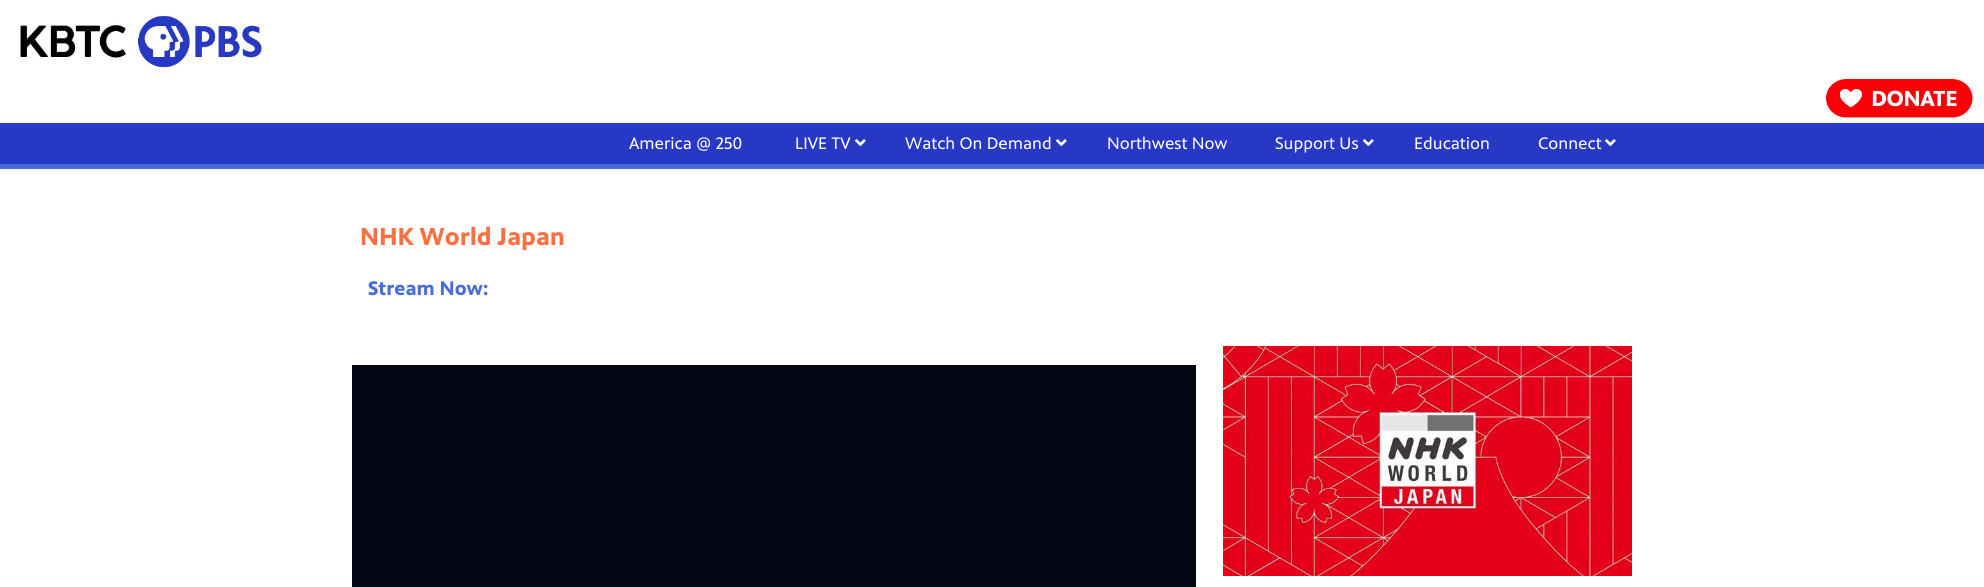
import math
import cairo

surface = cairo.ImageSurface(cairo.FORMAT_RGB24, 1984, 587)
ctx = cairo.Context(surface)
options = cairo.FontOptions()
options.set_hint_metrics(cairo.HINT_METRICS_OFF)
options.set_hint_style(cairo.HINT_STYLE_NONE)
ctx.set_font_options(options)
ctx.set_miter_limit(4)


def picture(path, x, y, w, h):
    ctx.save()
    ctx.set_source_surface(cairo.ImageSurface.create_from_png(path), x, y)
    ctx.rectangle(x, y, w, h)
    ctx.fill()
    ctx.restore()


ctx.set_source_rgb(1, 1, 1)
ctx.paint()
picture("img1.png", 20, 15, 243, 56)
picture("img2.png", 1826, 79, 147, 39)
ctx.set_source_rgb(0.149, 0.22, 0.769)
ctx.rectangle(0, 123, 1984, 41)
ctx.fill()
ctx.set_source_rgb(0.282, 0.424, 0.847)
ctx.rectangle(0, 164, 1984, 5)
ctx.fill()
ctx.select_font_face("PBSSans")
ctx.set_font_size(17)
ctx.set_source_rgb(1, 1, 1)
ctx.move_to(629, 149)
ctx.show_text("America @ 250")
ctx.move_to(795, 149)
ctx.show_text("LIVE TV")
picture("img3.png", 855, 139, 11, 7)
ctx.move_to(905, 149)
ctx.show_text("Watch On Demand")
picture("img3.png", 1056, 139, 11, 7)
ctx.move_to(1107, 149)
ctx.show_text("Northwest Now")
ctx.move_to(1275, 149)
ctx.show_text("Support Us")
picture("img3.png", 1363, 139, 11, 7)
ctx.move_to(1414, 149)
ctx.show_text("Education")
ctx.move_to(1538, 149)
ctx.show_text("Connect")
picture("img3.png", 1605, 139, 11, 7)
ctx.select_font_face("PBSSans", cairo.FONT_SLANT_NORMAL, cairo.FONT_WEIGHT_BOLD)
ctx.set_font_size(25)
ctx.set_source_rgb(0.996, 0.439, 0.263)
ctx.move_to(360, 245)
ctx.show_text("NHK World Japan")
ctx.set_font_size(20)
ctx.set_source_rgb(0.282, 0.424, 0.847)
ctx.move_to(368, 295)
ctx.show_text("Stream Now:")
ctx.set_source_rgb(0.016, 0.024, 0.075)
ctx.rectangle(352, 365, 844, 222)
ctx.fill()
picture("img4.png", 1223, 346, 409, 230)
surface.write_to_png("page.png")
